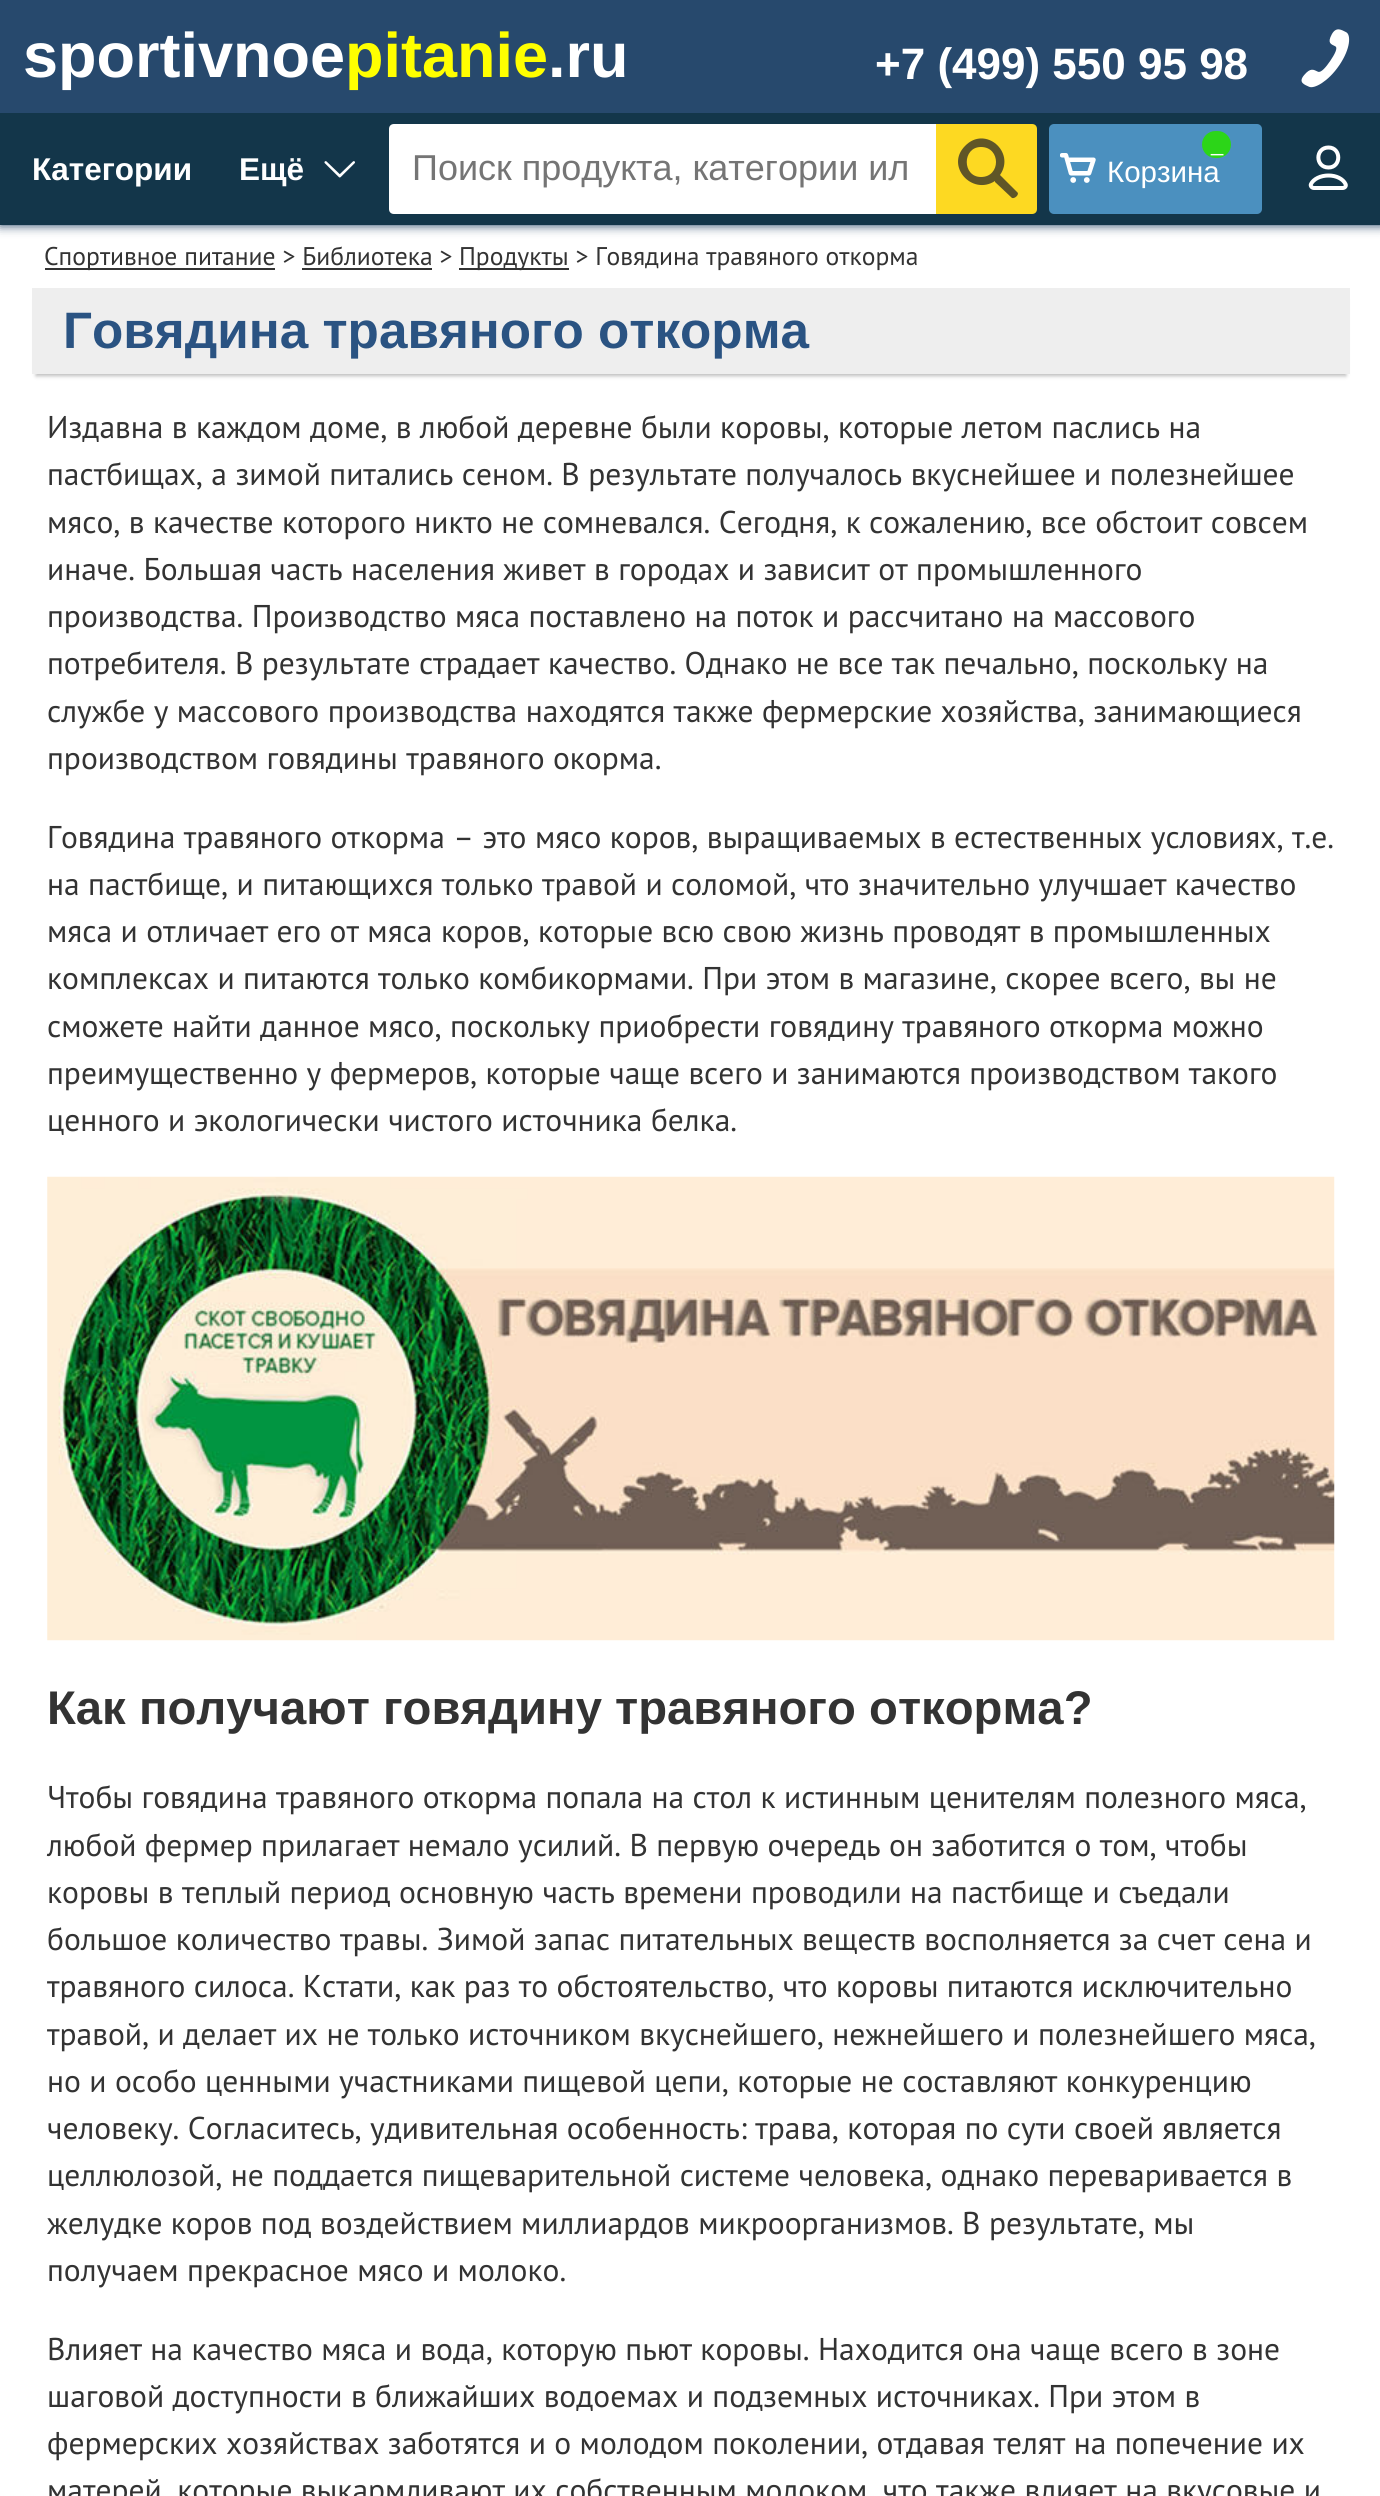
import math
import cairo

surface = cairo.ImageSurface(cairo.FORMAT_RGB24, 1380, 2496)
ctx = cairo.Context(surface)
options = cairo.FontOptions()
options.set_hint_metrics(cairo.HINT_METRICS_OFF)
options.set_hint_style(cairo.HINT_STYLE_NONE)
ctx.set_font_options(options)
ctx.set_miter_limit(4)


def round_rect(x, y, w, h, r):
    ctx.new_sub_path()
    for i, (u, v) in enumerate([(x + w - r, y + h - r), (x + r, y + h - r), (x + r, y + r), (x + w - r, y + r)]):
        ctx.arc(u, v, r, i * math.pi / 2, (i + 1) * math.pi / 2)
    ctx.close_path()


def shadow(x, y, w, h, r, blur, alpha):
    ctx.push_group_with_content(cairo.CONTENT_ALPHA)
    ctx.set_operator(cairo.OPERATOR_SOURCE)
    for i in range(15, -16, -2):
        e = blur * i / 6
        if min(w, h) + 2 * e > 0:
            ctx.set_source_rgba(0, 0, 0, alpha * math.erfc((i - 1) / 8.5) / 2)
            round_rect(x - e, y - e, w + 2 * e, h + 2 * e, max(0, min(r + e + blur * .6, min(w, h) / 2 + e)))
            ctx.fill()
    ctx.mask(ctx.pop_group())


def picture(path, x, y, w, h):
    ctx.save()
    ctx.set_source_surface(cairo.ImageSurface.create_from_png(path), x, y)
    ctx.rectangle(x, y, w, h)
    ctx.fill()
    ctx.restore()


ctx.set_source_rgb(1, 1, 1)
ctx.paint()
ctx.set_source_rgb(0.09, 0.224, 0.365)
shadow(0, 0, 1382, 225, 0, 5.5, 1)
ctx.set_source_rgb(0.153, 0.286, 0.427)
ctx.rectangle(0, 0, 1380, 113)
ctx.fill()
ctx.select_font_face("Liberation Sans", cairo.FONT_SLANT_NORMAL, cairo.FONT_WEIGHT_BOLD)
ctx.set_font_size(63)
ctx.set_source_rgb(1, 1, 1)
ctx.move_to(23, 77)
ctx.show_text("sportivnoe")
ctx.set_source_rgb(1, 1, 0)
ctx.move_to(345, 77)
ctx.show_text("pitanie")
ctx.set_source_rgb(1, 1, 1)
ctx.move_to(548, 77)
ctx.show_text(".ru")
ctx.set_font_size(44)
ctx.move_to(875, 79)
ctx.show_text("+7 (499) 550 95 98")
picture("img1.png", 1301, 29, 49, 59)
ctx.set_source_rgb(0.075, 0.212, 0.29)
ctx.rectangle(0, 113, 1380, 112)
ctx.fill()
ctx.set_font_size(31.5)
ctx.set_source_rgb(1, 1, 1)
ctx.move_to(32, 180)
ctx.show_text("Категории")
ctx.move_to(239, 180)
ctx.show_text("Ещё")
picture("img2.png", 324, 161, 31, 17)
ctx.new_path()
ctx.move_to(394, 124)
ctx.line_to(936, 124)
ctx.line_to(936, 214)
ctx.line_to(394, 214)
ctx.curve_to(391, 214, 389, 212, 389, 209)
ctx.line_to(389, 129)
ctx.curve_to(389, 126, 391, 124, 394, 124)
ctx.close_path()
ctx.fill()
ctx.select_font_face("Liberation Sans")
ctx.set_font_size(36)
ctx.set_source_rgb(0.459, 0.459, 0.459)
ctx.move_to(412, 180)
ctx.show_text("Поиск продукта, категории ил")
ctx.set_source_rgb(0.992, 0.851, 0.133)
ctx.new_path()
ctx.move_to(936, 124)
ctx.line_to(1032, 124)
ctx.curve_to(1035, 124, 1037, 126, 1037, 129)
ctx.line_to(1037, 209)
ctx.curve_to(1037, 212, 1035, 214, 1032, 214)
ctx.line_to(936, 214)
ctx.close_path()
ctx.fill()
ctx.set_source_rgb(0.376, 0.337, 0.153)
ctx.new_path()
ctx.move_to(1017, 192)
ctx.line_to(1001, 176)
ctx.line_to(1000, 175)
ctx.curve_to(1016, 152, 985, 125, 965, 146)
ctx.curve_to(945, 166, 972, 196, 995, 181)
ctx.line_to(995, 182)
ctx.line_to(1012, 198)
ctx.curve_to(1015, 199, 1020, 194, 1017, 192)
ctx.close_path()
ctx.move_to(981, 177)
ctx.curve_to(962, 177, 962, 147, 981, 147)
ctx.curve_to(1001, 147, 1001, 177, 981, 177)
ctx.close_path()
ctx.fill()
ctx.set_source_rgb(0.294, 0.565, 0.749)
round_rect(1049, 124, 213, 90, 5)
ctx.fill()
picture("img3.png", 1060, 153, 36, 30)
ctx.set_source_rgb(0.173, 0.835, 0.094)
round_rect(1202, 131, 29, 27, 13.5)
ctx.fill()
ctx.set_font_size(22)
ctx.set_source_rgb(1, 1, 1)
ctx.move_to(1211, 151)
ctx.show_text("_")
ctx.set_font_size(29.5)
ctx.move_to(1107, 182)
ctx.show_text("Корзина")
ctx.new_path()
ctx.move_to(1328.5, 167.5)
ctx.curve_to(1341.5, 167.5, 1341.5, 147.5, 1328.5, 147.5)
ctx.curve_to(1315, 147.5, 1315, 167.5, 1328.5, 167.5)
ctx.close_path()
ctx.move_to(1314, 188)
ctx.curve_to(1312, 188, 1310, 186, 1311, 184)
ctx.curve_to(1313.5, 179, 1320.5, 175.5, 1328.5, 175.5)
ctx.curve_to(1336.5, 175.5, 1343, 179, 1345.5, 184)
ctx.curve_to(1346.5, 186, 1345, 188, 1342.5, 188)
ctx.close_path()
ctx.set_line_width(4)
ctx.set_line_cap(cairo.LINE_CAP_ROUND)
ctx.set_line_join(cairo.LINE_JOIN_ROUND)
ctx.stroke()
ctx.set_source_rgb(0.2, 0.2, 0.2)
ctx.rectangle(45, 268, 230, 2)
ctx.fill()
ctx.select_font_face("PT Sans")
ctx.set_font_size(25.6)
ctx.move_to(44, 265)
ctx.show_text("Спортивное питание > Библиотека >")
ctx.rectangle(459, 268, 110, 2)
ctx.fill()
ctx.move_to(459, 265)
ctx.show_text("Продукты > Говядина травяного откорма")
ctx.rectangle(302, 268, 130, 2)
ctx.fill()
ctx.set_source_rgb(0.733, 0.733, 0.733)
shadow(36, 299, 1310, 77, 0, 2, 1)
ctx.set_source_rgb(0.933, 0.933, 0.933)
ctx.rectangle(32, 288, 1318, 86)
ctx.fill()
ctx.select_font_face("Liberation Sans", cairo.FONT_SLANT_NORMAL, cairo.FONT_WEIGHT_BOLD)
ctx.set_font_size(51.25)
ctx.set_source_rgb(0.165, 0.325, 0.51)
ctx.move_to(63, 348)
ctx.show_text("Говядина травяного откорма")
ctx.select_font_face("PT Sans")
ctx.set_font_size(31.5)
ctx.set_source_rgb(0.2, 0.2, 0.2)
ctx.move_to(47, 438)
ctx.show_text("Издавна в каждом доме, в любой деревне были коровы, которые летом паслись на")
ctx.move_to(47, 485)
ctx.show_text("пастбищах, а зимой питались сеном. В результате получалось вкуснейшее и полезнейшее")
ctx.move_to(47, 533)
ctx.show_text("мясо, в качестве которого никто не сомневался. Сегодня, к сожалению, все обстоит совсем")
ctx.move_to(47, 580)
ctx.show_text("иначе. Большая часть населения живет в городах и зависит от промышленного")
ctx.move_to(47, 627)
ctx.show_text("производства. Производство мяса поставлено на поток и рассчитано на массового")
ctx.move_to(47, 674)
ctx.show_text("потребителя. В результате страдает качество. Однако не все так печально, поскольку на")
ctx.move_to(47, 722)
ctx.show_text("службе у массового производства находятся также фермерские хозяйства, занимающиеся")
ctx.move_to(47, 769)
ctx.show_text("производством говядины травяного окорма.")
ctx.move_to(47, 848)
ctx.show_text("Говядина травяного откорма – это мясо коров, выращиваемых в естественных условиях, т.е.")
ctx.move_to(47, 895)
ctx.show_text("на пастбище, и питающихся только травой и соломой, что значительно улучшает качество")
ctx.move_to(47, 942)
ctx.show_text("мяса и отличает его от мяса коров, которые всю свою жизнь проводят в промышленных")
ctx.move_to(47, 989)
ctx.show_text("комплексах и питаются только комбикормами. При этом в магазине, скорее всего, вы не")
ctx.move_to(47, 1037)
ctx.show_text("сможете найти данное мясо, поскольку приобрести говядину травяного откорма можно")
ctx.move_to(47, 1084)
ctx.show_text("преимущественно у фермеров, которые чаще всего и занимаются производством такого")
ctx.move_to(47, 1131)
ctx.show_text("ценного и экологически чистого источника белка.")
picture("img4.png", 47, 1176, 1288, 465)
ctx.select_font_face("Liberation Sans", cairo.FONT_SLANT_NORMAL, cairo.FONT_WEIGHT_BOLD)
ctx.set_font_size(47.25)
ctx.move_to(47, 1724)
ctx.show_text("Как получают говядину травяного откорма?")
ctx.select_font_face("PT Sans")
ctx.set_font_size(31.5)
ctx.move_to(47, 1808)
ctx.show_text("Чтобы говядина травяного откорма попала на стол к истинным ценителям полезного мяса,")
ctx.move_to(47, 1856)
ctx.show_text("любой фермер прилагает немало усилий. В первую очередь он заботится о том, чтобы")
ctx.move_to(47, 1903)
ctx.show_text("коровы в теплый период основную часть времени проводили на пастбище и съедали")
ctx.move_to(47, 1950)
ctx.show_text("большое количество травы. Зимой запас питательных веществ восполняется за счет сена и")
ctx.move_to(47, 1997)
ctx.show_text("травяного силоса. Кстати, как раз то обстоятельство, что коровы питаются исключительно")
ctx.move_to(47, 2045)
ctx.show_text("травой, и делает их не только источником вкуснейшего, нежнейшего и полезнейшего мяса,")
ctx.move_to(47, 2092)
ctx.show_text("но и особо ценными участниками пищевой цепи, которые не составляют конкуренцию")
ctx.move_to(47, 2139)
ctx.show_text("человеку. Согласитесь, удивительная особенность: трава, которая по сути своей является")
ctx.move_to(47, 2186)
ctx.show_text("целлюлозой, не поддается пищеварительной системе человека, однако переваривается в")
ctx.move_to(47, 2234)
ctx.show_text("желудке коров под воздействием миллиардов микроорганизмов. В результате, мы")
ctx.move_to(47, 2281)
ctx.show_text("получаем прекрасное мясо и молоко.")
ctx.move_to(47, 2360)
ctx.show_text("Влияет на качество мяса и вода, которую пьют коровы. Находится она чаще всего в зоне")
ctx.move_to(47, 2407)
ctx.show_text("шаговой доступности в ближайших водоемах и подземных источниках. При этом в")
ctx.move_to(47, 2454)
ctx.show_text("фермерских хозяйствах заботятся и о молодом поколении, отдавая телят на попечение их")
ctx.move_to(47, 2501)
ctx.show_text("матерей, которые выкармливают их собственным молоком, что также влияет на вкусовые и")
surface.write_to_png("page.png")
